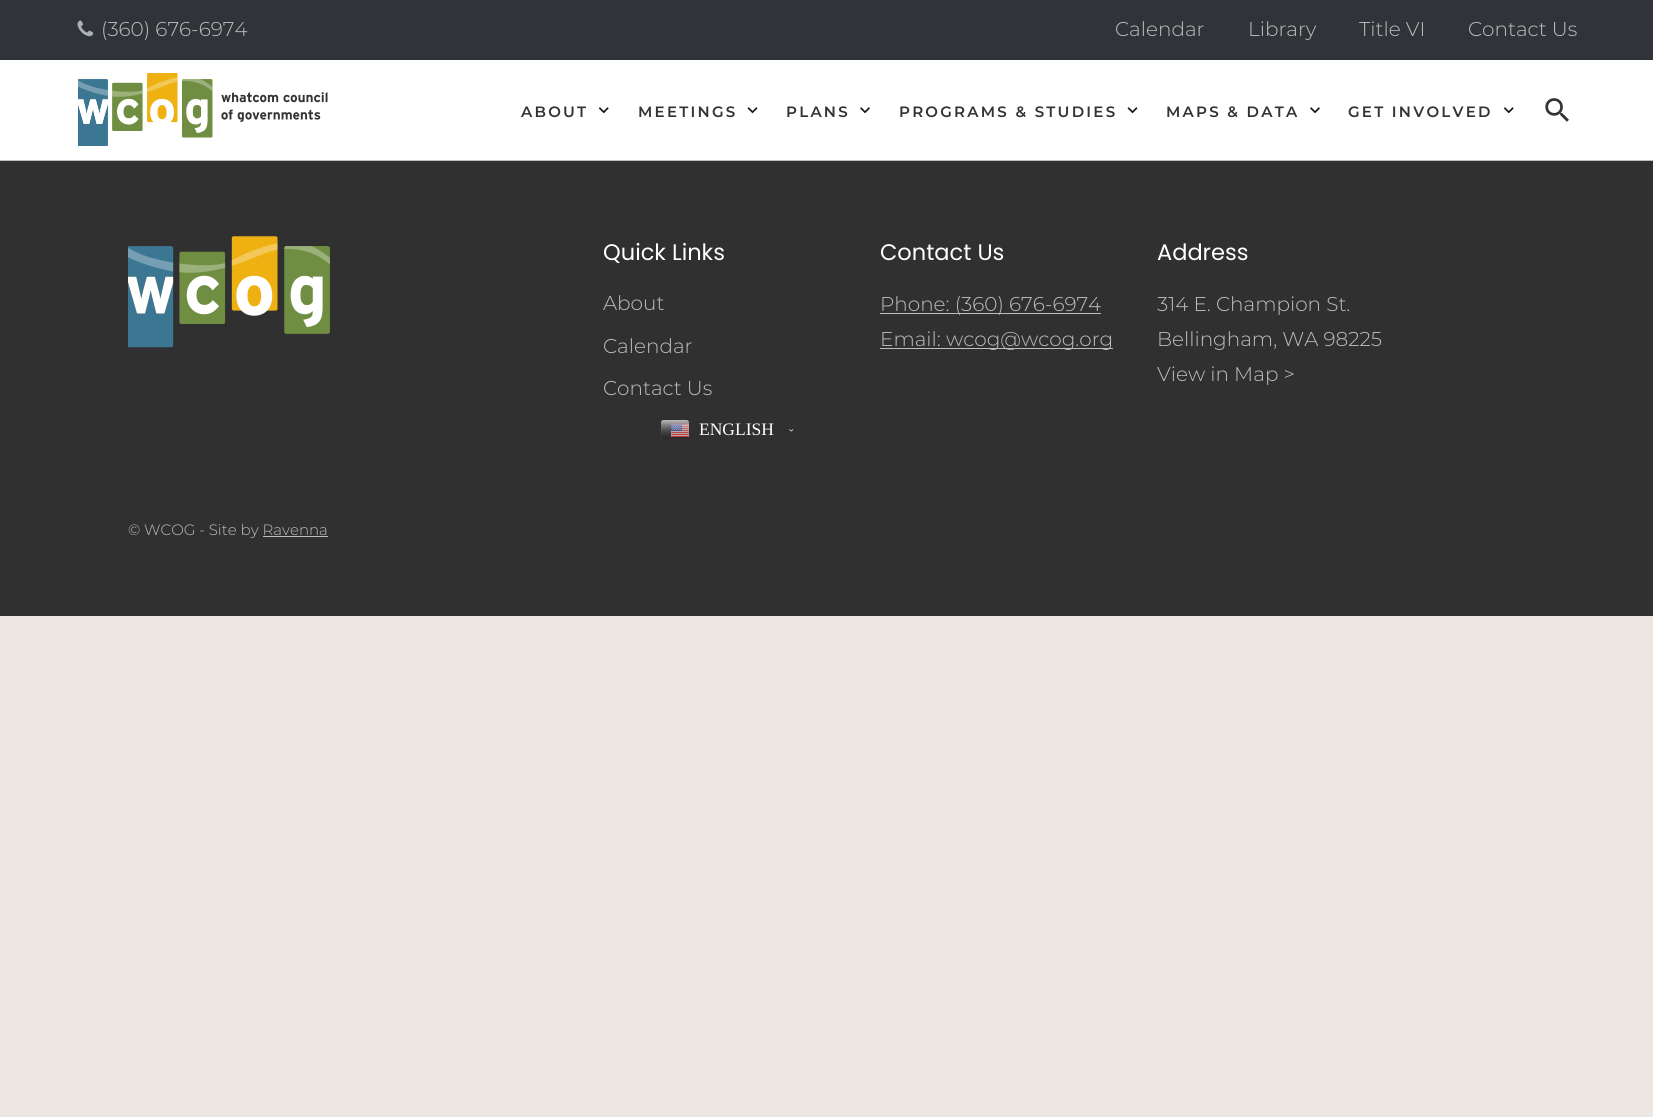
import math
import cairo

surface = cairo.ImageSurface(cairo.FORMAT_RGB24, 1653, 1117)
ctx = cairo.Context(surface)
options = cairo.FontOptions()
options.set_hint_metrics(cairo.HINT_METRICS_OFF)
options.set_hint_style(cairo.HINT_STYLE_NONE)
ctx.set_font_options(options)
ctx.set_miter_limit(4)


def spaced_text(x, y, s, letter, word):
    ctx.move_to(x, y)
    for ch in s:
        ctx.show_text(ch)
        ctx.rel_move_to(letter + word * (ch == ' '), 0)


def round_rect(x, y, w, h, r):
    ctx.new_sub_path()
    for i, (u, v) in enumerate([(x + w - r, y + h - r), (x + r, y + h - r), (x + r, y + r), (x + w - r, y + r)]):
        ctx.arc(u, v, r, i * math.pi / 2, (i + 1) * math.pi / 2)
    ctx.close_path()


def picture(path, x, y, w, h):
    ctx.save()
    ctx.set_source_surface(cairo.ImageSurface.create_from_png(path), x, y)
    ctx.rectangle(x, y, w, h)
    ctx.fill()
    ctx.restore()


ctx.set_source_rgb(0.929, 0.906, 0.89)
ctx.paint()
ctx.set_source_rgb(1, 1, 1)
ctx.rectangle(0, 60, 1653, 100)
ctx.fill()
ctx.set_source_rgb(0.745, 0.745, 0.745)
ctx.rectangle(0, 160, 1653, 1)
ctx.fill()
ctx.set_source_rgb(0.188, 0.204, 0.224)
ctx.rectangle(0, 0, 1653, 60)
ctx.fill()
picture("img1.png", 77, 20, 17, 17)
ctx.select_font_face("Montserrat Light")
ctx.set_font_size(20)
ctx.set_source_rgb(0.745, 0.745, 0.745)
ctx.move_to(101, 36)
ctx.show_text("(360) 676-6974")
ctx.move_to(1115, 36)
ctx.show_text("Calendar")
ctx.move_to(1248, 36)
ctx.show_text("Library")
ctx.move_to(1359, 36)
ctx.show_text("Title VI")
ctx.move_to(1468, 36)
ctx.show_text("Contact Us")
picture("img2.png", 78, 73, 250, 73)
ctx.select_font_face("Montserrat SemiBold")
ctx.set_font_size(15)
ctx.set_source_rgb(0.2, 0.2, 0.2)
spaced_text(521, 117, "ABOUT", 2.25, 0)
picture("img3.png", 598, 107, 11, 7)
spaced_text(638, 117, "MEETINGS", 2.25, 0)
picture("img4.png", 747, 107, 11, 7)
spaced_text(786, 117, "PLANS", 2.25, 0)
picture("img5.png", 860, 107, 10, 7)
spaced_text(899, 117, "PROGRAMS & STUDIES", 2.25, 0)
picture("img4.png", 1127, 107, 11, 7)
spaced_text(1166, 117, "MAPS & DATA", 2.25, 0)
picture("img5.png", 1310, 107, 10, 7)
spaced_text(1348, 117, "GET INVOLVED", 2.25, 0)
picture("img3.png", 1503, 107, 11, 7)
picture("img6.png", 1545, 98, 24, 24)
ctx.set_source_rgb(0.188, 0.188, 0.188)
ctx.rectangle(0, 161, 1653, 455)
ctx.fill()
picture("img7.png", 128, 236, 202, 112)
ctx.select_font_face("Poppins")
ctx.set_font_size(22.5)
ctx.set_source_rgb(1, 1, 1)
ctx.move_to(603, 260)
ctx.show_text("Quick Links")
ctx.select_font_face("Montserrat Light")
ctx.set_font_size(20)
ctx.set_source_rgb(0.745, 0.745, 0.745)
ctx.move_to(603, 310)
ctx.show_text("About")
ctx.move_to(603, 353)
ctx.show_text("Calendar")
ctx.move_to(603, 395)
ctx.show_text("Contact Us")
picture("img8.png", 671, 423, 18, 14)
gradient = cairo.LinearGradient(675, 420, 675, 440)
gradient.add_color_stop_rgba(0, 1, 1, 1, 0.7)
gradient.add_color_stop_rgba(1, 0, 0, 0, 0.15)
ctx.set_source(gradient)
round_rect(661, 420, 28, 20, 2.5)
ctx.fill()
round_rect(661.5, 420.5, 27, 19, 2)
ctx.set_source_rgba(0.463, 0.463, 0.463, 0.1)
ctx.set_line_width(1)
ctx.stroke()
ctx.select_font_face("Liberation Serif")
ctx.set_font_size(17.5)
ctx.set_source_rgb(1, 1, 1)
ctx.move_to(699, 435)
ctx.show_text("ENGLISH")
picture("img9.png", 789, 429, 5, 3)
ctx.select_font_face("Poppins")
ctx.set_font_size(22.5)
ctx.move_to(880, 260)
ctx.show_text("Contact Us")
ctx.set_source_rgb(0.745, 0.745, 0.745)
ctx.rectangle(880, 313, 221, 1)
ctx.fill()
ctx.select_font_face("Montserrat Light")
ctx.set_font_size(20)
ctx.move_to(880, 311)
ctx.show_text("Phone: (360) 676-6974")
ctx.rectangle(880, 348, 233, 1)
ctx.fill()
ctx.move_to(880, 346)
ctx.show_text("Email: wcog@wcog.org")
ctx.select_font_face("Poppins")
ctx.set_font_size(22.5)
ctx.set_source_rgb(1, 1, 1)
ctx.move_to(1157, 260)
ctx.show_text("Address")
ctx.select_font_face("Montserrat Light")
ctx.set_font_size(20)
ctx.set_source_rgb(0.745, 0.745, 0.745)
ctx.move_to(1157, 311)
ctx.show_text("314 E. Champion St.")
ctx.move_to(1157, 346)
ctx.show_text("Bellingham, WA 98225")
ctx.move_to(1157, 381)
ctx.show_text("View in Map >")
ctx.set_font_size(15)
ctx.move_to(128, 535)
ctx.show_text("© WCOG - Site by Ravenna")
ctx.rectangle(263, 536, 65, 1)
ctx.fill()
surface.write_to_png("page.png")
